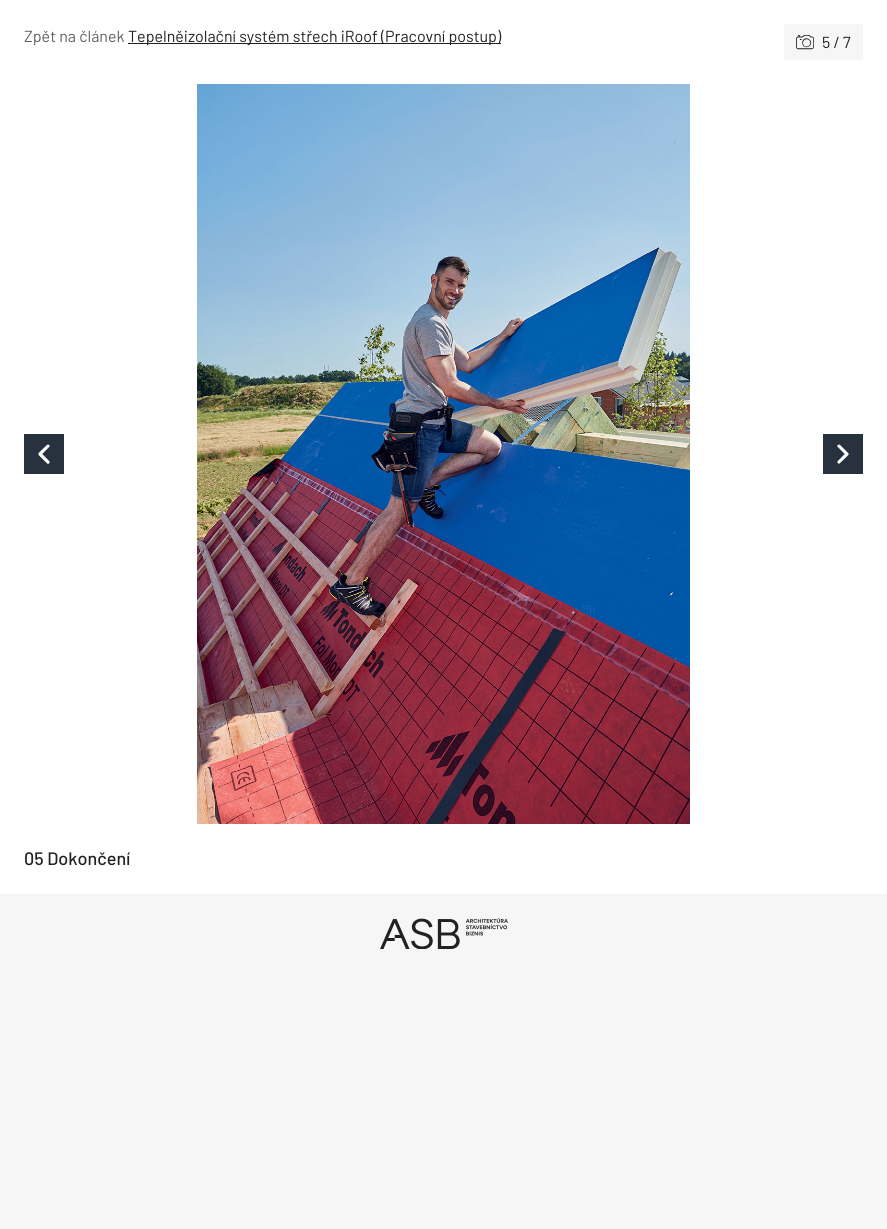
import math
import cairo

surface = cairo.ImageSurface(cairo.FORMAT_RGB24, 887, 1229)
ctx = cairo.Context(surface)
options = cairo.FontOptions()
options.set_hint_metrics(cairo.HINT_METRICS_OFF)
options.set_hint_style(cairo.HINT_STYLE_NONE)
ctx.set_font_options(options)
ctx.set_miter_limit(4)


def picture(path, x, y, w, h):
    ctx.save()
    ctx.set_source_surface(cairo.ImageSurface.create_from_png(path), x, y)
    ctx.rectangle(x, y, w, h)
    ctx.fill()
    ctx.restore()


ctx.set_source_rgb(1, 1, 1)
ctx.paint()
ctx.select_font_face("Barlow")
ctx.set_font_size(16)
ctx.set_source_rgb(0.38, 0.38, 0.38)
ctx.move_to(24, 42)
ctx.show_text("Zpět na článek")
ctx.set_source_rgb(0.129, 0.129, 0.129)
ctx.rectangle(128, 43, 373, 1)
ctx.fill()
ctx.move_to(128, 42)
ctx.show_text("Tepelněizolační systém střech iRoof (Pracovní postup)")
ctx.set_source_rgb(0.961, 0.961, 0.961)
ctx.rectangle(784, 24, 79, 36)
ctx.fill()
picture("img1.png", 796, 35, 18, 15)
ctx.set_source_rgb(0.129, 0.129, 0.129)
ctx.move_to(822, 48)
ctx.show_text("5 / 7")
ctx.set_source_rgb(0.157, 0.192, 0.243)
ctx.rectangle(24, 434, 40, 40)
ctx.fill()
picture("img2.png", 38, 444, 12, 20)
picture("img3.png", 197, 84, 493, 740)
ctx.rectangle(823, 434, 40, 40)
ctx.fill()
picture("img4.png", 837, 444, 12, 20)
ctx.select_font_face("Barlow Medium")
ctx.set_font_size(18)
ctx.set_source_rgb(0.129, 0.129, 0.129)
ctx.move_to(24, 865)
ctx.show_text("05 Dokončení")
ctx.set_source_rgb(0.961, 0.961, 0.961)
ctx.rectangle(0, 894, 887, 335)
ctx.fill()
picture("img5.png", 380, 918, 128, 31)
surface.write_to_png("page.png")
